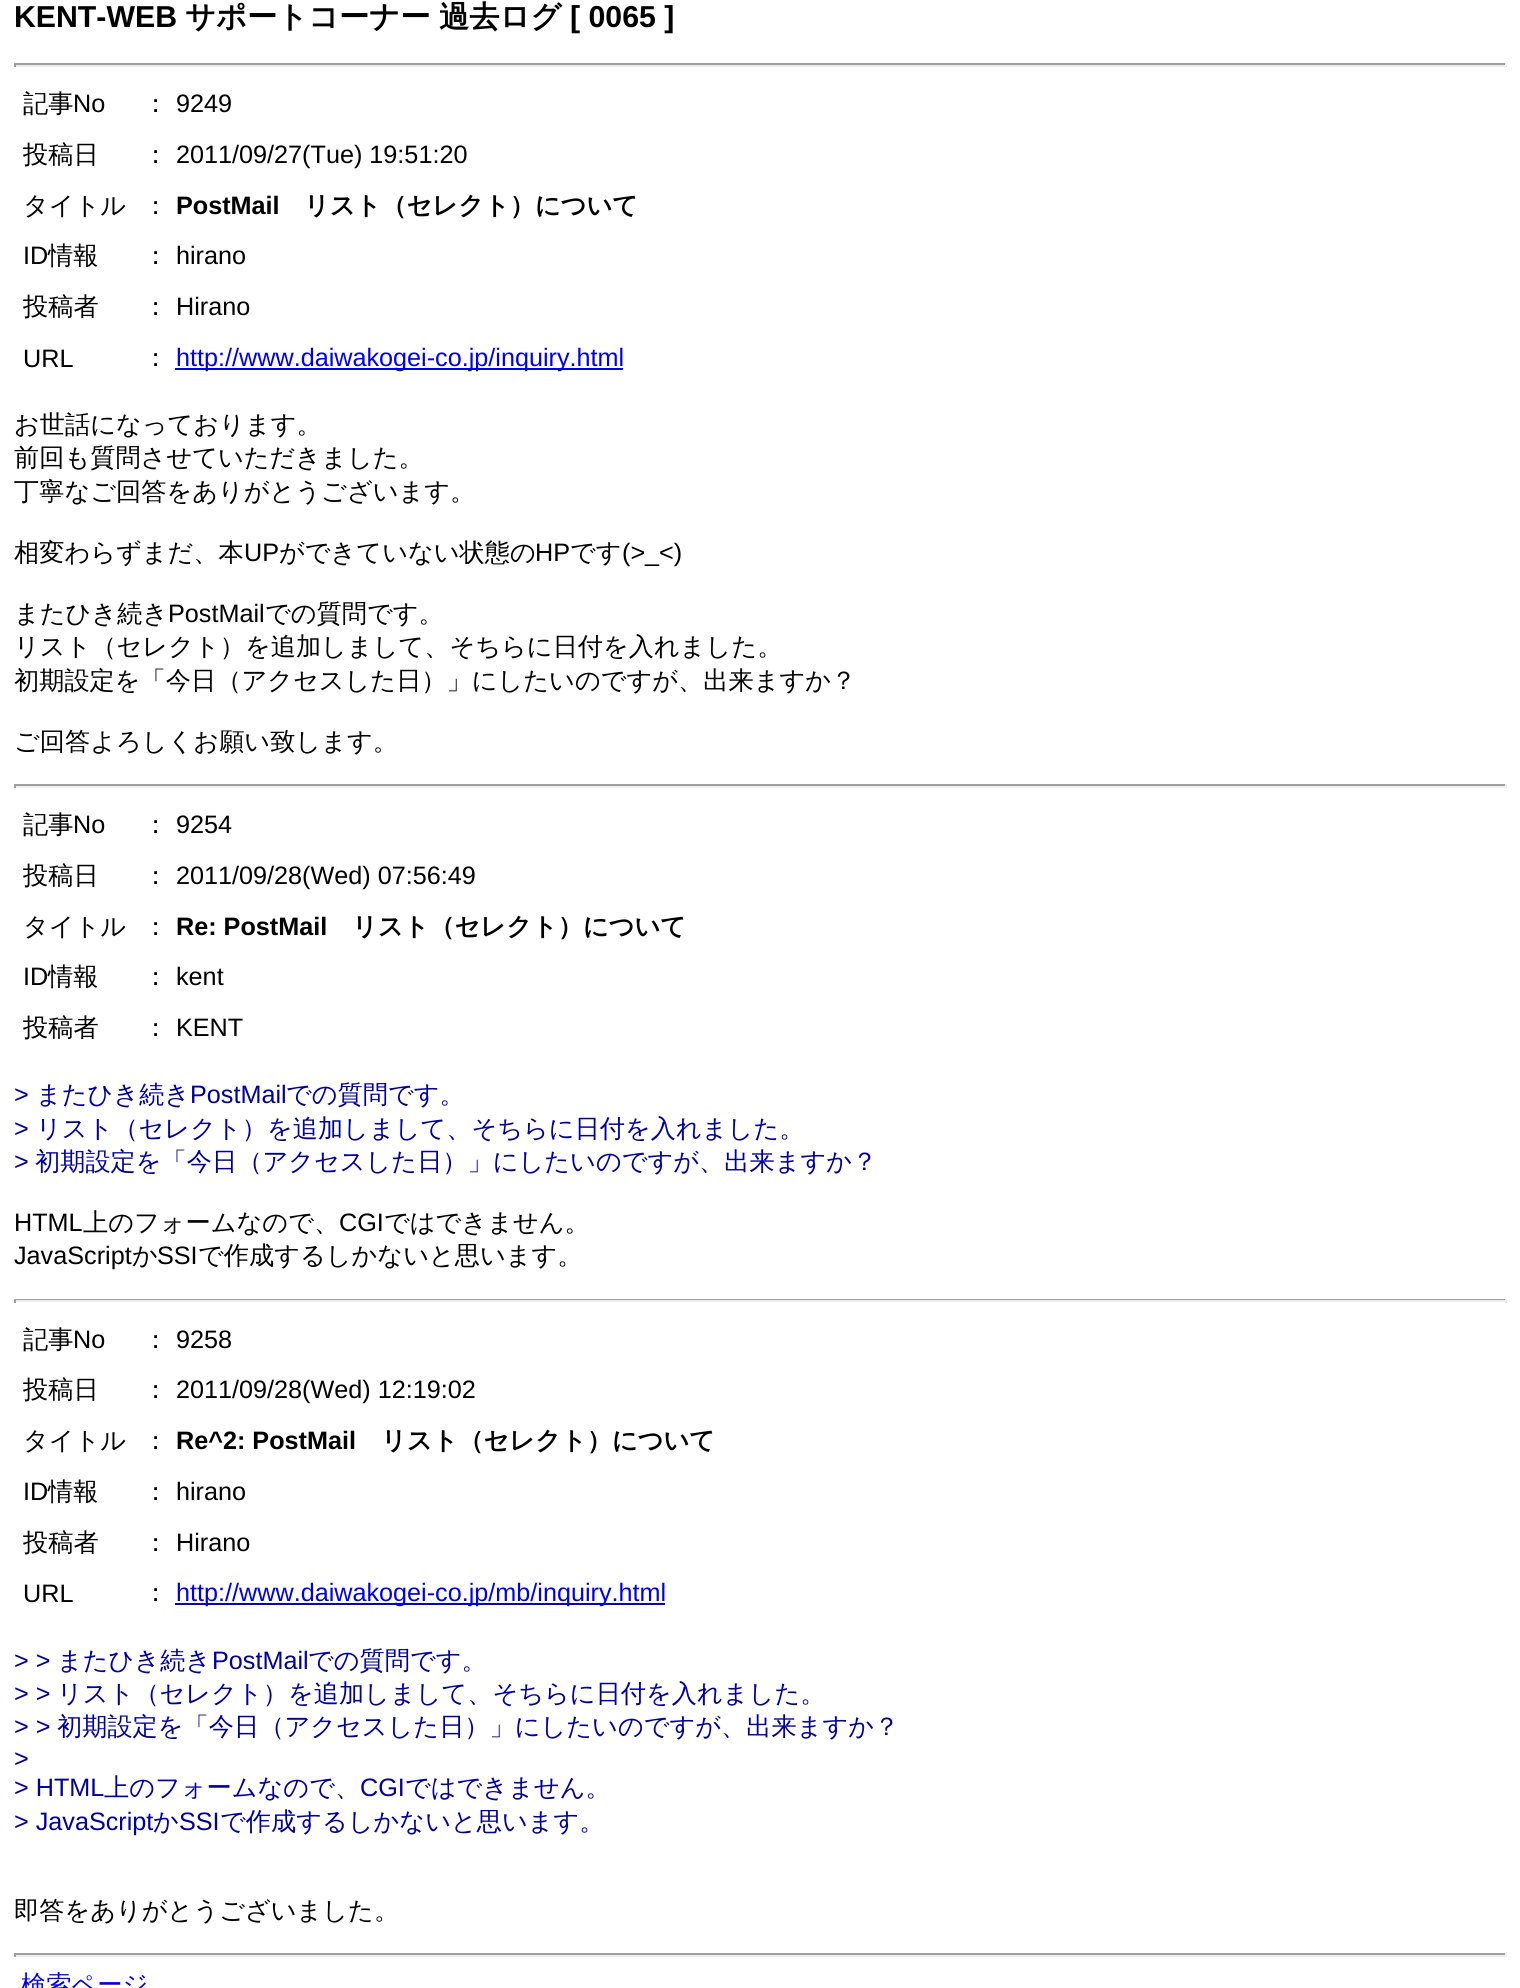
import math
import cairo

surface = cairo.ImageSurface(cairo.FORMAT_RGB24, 1520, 1988)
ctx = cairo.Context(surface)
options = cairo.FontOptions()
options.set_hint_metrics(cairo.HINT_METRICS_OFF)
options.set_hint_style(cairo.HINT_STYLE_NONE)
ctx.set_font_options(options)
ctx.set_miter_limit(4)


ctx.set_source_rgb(1, 1, 1)
ctx.paint()
ctx.select_font_face("Liberation Sans", cairo.FONT_SLANT_NORMAL, cairo.FONT_WEIGHT_BOLD)
ctx.set_font_size(30.25)
ctx.set_source_rgb(0, 0, 0)
ctx.move_to(14, 27)
ctx.show_text("KENT-WEB")
ctx.select_font_face("WenQuanYi Zen Hei", cairo.FONT_SLANT_NORMAL, cairo.FONT_WEIGHT_BOLD)
ctx.move_to(185, 27)
ctx.show_text("サポートコーナー")
ctx.move_to(439, 27)
ctx.show_text("過去ログ")
ctx.select_font_face("Liberation Sans", cairo.FONT_SLANT_NORMAL, cairo.FONT_WEIGHT_BOLD)
ctx.move_to(570, 27)
ctx.show_text("[ 0065 ]")
ctx.set_source_rgb(0.624, 0.624, 0.624)
ctx.rectangle(14, 63, 1493, 2)
ctx.fill()
ctx.set_source_rgb(0.933, 0.933, 0.933)
ctx.rectangle(1505, 63, 2, 4)
ctx.fill()
ctx.rectangle(14, 65, 1493, 2)
ctx.fill()
ctx.set_source_rgb(0.624, 0.624, 0.624)
ctx.rectangle(14, 63, 2, 4)
ctx.fill()
ctx.select_font_face("WenQuanYi Zen Hei Medium")
ctx.set_font_size(25.2)
ctx.set_source_rgb(0, 0, 0)
ctx.move_to(23, 112)
ctx.show_text("記事")
ctx.select_font_face("Liberation Sans")
ctx.move_to(73, 112)
ctx.show_text("No")
ctx.select_font_face("WenQuanYi Zen Hei Medium")
ctx.move_to(143, 112)
ctx.show_text("：")
ctx.select_font_face("Liberation Sans")
ctx.move_to(176, 112)
ctx.show_text("9249")
ctx.select_font_face("WenQuanYi Zen Hei Medium")
ctx.move_to(23, 163)
ctx.show_text("投稿日")
ctx.move_to(143, 163)
ctx.show_text("：")
ctx.select_font_face("Liberation Sans")
ctx.move_to(176, 163)
ctx.show_text("2011/09/27(Tue) 19:51:20")
ctx.select_font_face("WenQuanYi Zen Hei Medium")
ctx.move_to(23, 214)
ctx.show_text("タイトル")
ctx.move_to(143, 214)
ctx.show_text("：")
ctx.select_font_face("Liberation Sans", cairo.FONT_SLANT_NORMAL, cairo.FONT_WEIGHT_BOLD)
ctx.move_to(176, 214)
ctx.show_text("PostMail")
ctx.select_font_face("WenQuanYi Zen Hei", cairo.FONT_SLANT_NORMAL, cairo.FONT_WEIGHT_BOLD)
ctx.move_to(304, 214)
ctx.show_text("リスト（セレクト）について")
ctx.select_font_face("Liberation Sans")
ctx.move_to(23, 264)
ctx.show_text("ID")
ctx.select_font_face("WenQuanYi Zen Hei Medium")
ctx.move_to(48, 264)
ctx.show_text("情報")
ctx.move_to(143, 264)
ctx.show_text("：")
ctx.select_font_face("Liberation Sans")
ctx.move_to(176, 264)
ctx.show_text("hirano")
ctx.select_font_face("WenQuanYi Zen Hei Medium")
ctx.move_to(23, 315)
ctx.show_text("投稿者")
ctx.move_to(143, 315)
ctx.show_text("：")
ctx.select_font_face("Liberation Sans")
ctx.move_to(176, 315)
ctx.show_text("Hirano")
ctx.move_to(23, 367)
ctx.show_text("URL")
ctx.select_font_face("WenQuanYi Zen Hei Medium")
ctx.move_to(143, 366)
ctx.show_text("：")
ctx.set_source_rgb(0, 0, 0.933)
ctx.rectangle(175, 368, 448, 2)
ctx.fill()
ctx.select_font_face("Liberation Sans")
ctx.move_to(176, 366)
ctx.show_text("http://www.daiwakogei-co.jp/inquiry.html")
ctx.select_font_face("WenQuanYi Zen Hei Medium")
ctx.set_source_rgb(0, 0, 0)
ctx.move_to(14, 433)
ctx.show_text("お世話になっております。")
ctx.move_to(14, 466)
ctx.show_text("前回も質問させていただきました。")
ctx.move_to(14, 500)
ctx.show_text("丁寧なご回答をありがとうございます。")
ctx.move_to(14, 561)
ctx.show_text("相変わらずまだ、本")
ctx.select_font_face("Liberation Sans")
ctx.move_to(244, 561)
ctx.show_text("UP")
ctx.select_font_face("WenQuanYi Zen Hei Medium")
ctx.move_to(279, 561)
ctx.show_text("ができていない状態の")
ctx.select_font_face("Liberation Sans")
ctx.move_to(535, 561)
ctx.show_text("HP")
ctx.select_font_face("WenQuanYi Zen Hei Medium")
ctx.move_to(570, 561)
ctx.show_text("です")
ctx.select_font_face("Liberation Sans")
ctx.move_to(622, 561)
ctx.show_text("(>_<)")
ctx.select_font_face("WenQuanYi Zen Hei Medium")
ctx.move_to(14, 622)
ctx.show_text("またひき続き")
ctx.select_font_face("Liberation Sans")
ctx.move_to(168, 622)
ctx.show_text("PostMail")
ctx.select_font_face("WenQuanYi Zen Hei Medium")
ctx.move_to(265, 622)
ctx.show_text("での質問です。")
ctx.move_to(14, 655)
ctx.show_text("リスト（セレクト）を追加しまして、そちらに日付を入れました。")
ctx.move_to(14, 689)
ctx.show_text("初期設定を「今日（アクセスした日）」にしたいのですが、出来ますか？")
ctx.move_to(14, 750)
ctx.show_text("ご回答よろしくお願い致します。")
ctx.set_source_rgb(0.624, 0.624, 0.624)
ctx.rectangle(14, 784, 1493, 2)
ctx.fill()
ctx.set_source_rgb(0.933, 0.933, 0.933)
ctx.rectangle(1505, 784, 2, 4)
ctx.fill()
ctx.rectangle(14, 786, 1493, 2)
ctx.fill()
ctx.set_source_rgb(0.624, 0.624, 0.624)
ctx.rectangle(14, 784, 2, 4)
ctx.fill()
ctx.set_source_rgb(0, 0, 0)
ctx.move_to(23, 833)
ctx.show_text("記事")
ctx.select_font_face("Liberation Sans")
ctx.move_to(73, 833)
ctx.show_text("No")
ctx.select_font_face("WenQuanYi Zen Hei Medium")
ctx.move_to(143, 833)
ctx.show_text("：")
ctx.select_font_face("Liberation Sans")
ctx.move_to(176, 833)
ctx.show_text("9254")
ctx.select_font_face("WenQuanYi Zen Hei Medium")
ctx.move_to(23, 884)
ctx.show_text("投稿日")
ctx.move_to(143, 884)
ctx.show_text("：")
ctx.select_font_face("Liberation Sans")
ctx.move_to(176, 884)
ctx.show_text("2011/09/28(Wed) 07:56:49")
ctx.select_font_face("WenQuanYi Zen Hei Medium")
ctx.move_to(23, 935)
ctx.show_text("タイトル")
ctx.move_to(143, 935)
ctx.show_text("：")
ctx.select_font_face("Liberation Sans", cairo.FONT_SLANT_NORMAL, cairo.FONT_WEIGHT_BOLD)
ctx.move_to(176, 935)
ctx.show_text("Re: PostMail")
ctx.select_font_face("WenQuanYi Zen Hei", cairo.FONT_SLANT_NORMAL, cairo.FONT_WEIGHT_BOLD)
ctx.move_to(352, 935)
ctx.show_text("リスト（セレクト）について")
ctx.select_font_face("Liberation Sans")
ctx.move_to(23, 985)
ctx.show_text("ID")
ctx.select_font_face("WenQuanYi Zen Hei Medium")
ctx.move_to(48, 985)
ctx.show_text("情報")
ctx.move_to(143, 985)
ctx.show_text("：")
ctx.select_font_face("Liberation Sans")
ctx.move_to(176, 985)
ctx.show_text("kent")
ctx.select_font_face("WenQuanYi Zen Hei Medium")
ctx.move_to(23, 1036)
ctx.show_text("投稿者")
ctx.move_to(143, 1036)
ctx.show_text("：")
ctx.select_font_face("Liberation Sans")
ctx.move_to(176, 1036)
ctx.show_text("KENT")
ctx.set_source_rgb(0, 0, 0.627)
ctx.move_to(14, 1103)
ctx.show_text(">")
ctx.select_font_face("WenQuanYi Zen Hei Medium")
ctx.move_to(36, 1103)
ctx.show_text("またひき続き")
ctx.select_font_face("Liberation Sans")
ctx.move_to(190, 1103)
ctx.show_text("PostMail")
ctx.select_font_face("WenQuanYi Zen Hei Medium")
ctx.move_to(286, 1103)
ctx.show_text("での質問です。")
ctx.select_font_face("Liberation Sans")
ctx.move_to(14, 1137)
ctx.show_text(">")
ctx.select_font_face("WenQuanYi Zen Hei Medium")
ctx.move_to(36, 1137)
ctx.show_text("リスト（セレクト）を追加しまして、そちらに日付を入れました。")
ctx.select_font_face("Liberation Sans")
ctx.move_to(14, 1170)
ctx.show_text(">")
ctx.select_font_face("WenQuanYi Zen Hei Medium")
ctx.move_to(35, 1170)
ctx.show_text("初期設定を「今日（アクセスした日）」にしたいのですが、出来ますか？")
ctx.select_font_face("Liberation Sans")
ctx.set_source_rgb(0, 0, 0)
ctx.move_to(14, 1231)
ctx.show_text("HTML")
ctx.select_font_face("WenQuanYi Zen Hei Medium")
ctx.move_to(83, 1231)
ctx.show_text("上のフォームなので、")
ctx.select_font_face("Liberation Sans")
ctx.move_to(339, 1231)
ctx.show_text("CGI")
ctx.select_font_face("WenQuanYi Zen Hei Medium")
ctx.move_to(384, 1231)
ctx.show_text("ではできません。")
ctx.select_font_face("Liberation Sans")
ctx.move_to(14, 1264)
ctx.show_text("JavaScript")
ctx.select_font_face("WenQuanYi Zen Hei Medium")
ctx.move_to(132, 1264)
ctx.show_text("か")
ctx.select_font_face("Liberation Sans")
ctx.move_to(157, 1264)
ctx.show_text("SSI")
ctx.select_font_face("WenQuanYi Zen Hei Medium")
ctx.move_to(198, 1264)
ctx.show_text("で作成するしかないと思います。")
ctx.set_source_rgb(0.624, 0.624, 0.624)
ctx.rectangle(14, 1299, 1493, 1)
ctx.fill()
ctx.set_source_rgb(0.933, 0.933, 0.933)
ctx.rectangle(1505, 1299, 2, 4)
ctx.fill()
ctx.rectangle(14, 1300, 1493, 2)
ctx.fill()
ctx.set_source_rgb(0.624, 0.624, 0.624)
ctx.rectangle(14, 1299, 2, 4)
ctx.fill()
ctx.set_source_rgb(0, 0, 0)
ctx.move_to(23, 1348)
ctx.show_text("記事")
ctx.select_font_face("Liberation Sans")
ctx.move_to(73, 1348)
ctx.show_text("No")
ctx.select_font_face("WenQuanYi Zen Hei Medium")
ctx.move_to(143, 1348)
ctx.show_text("：")
ctx.select_font_face("Liberation Sans")
ctx.move_to(176, 1348)
ctx.show_text("9258")
ctx.select_font_face("WenQuanYi Zen Hei Medium")
ctx.move_to(23, 1398)
ctx.show_text("投稿日")
ctx.move_to(143, 1398)
ctx.show_text("：")
ctx.select_font_face("Liberation Sans")
ctx.move_to(176, 1398)
ctx.show_text("2011/09/28(Wed) 12:19:02")
ctx.select_font_face("WenQuanYi Zen Hei Medium")
ctx.move_to(23, 1449)
ctx.show_text("タイトル")
ctx.move_to(143, 1449)
ctx.show_text("：")
ctx.select_font_face("Liberation Sans", cairo.FONT_SLANT_NORMAL, cairo.FONT_WEIGHT_BOLD)
ctx.move_to(176, 1449)
ctx.show_text("Re^2: PostMail")
ctx.select_font_face("WenQuanYi Zen Hei", cairo.FONT_SLANT_NORMAL, cairo.FONT_WEIGHT_BOLD)
ctx.move_to(381, 1449)
ctx.show_text("リスト（セレクト）について")
ctx.select_font_face("Liberation Sans")
ctx.move_to(23, 1500)
ctx.show_text("ID")
ctx.select_font_face("WenQuanYi Zen Hei Medium")
ctx.move_to(48, 1500)
ctx.show_text("情報")
ctx.move_to(143, 1500)
ctx.show_text("：")
ctx.select_font_face("Liberation Sans")
ctx.move_to(176, 1500)
ctx.show_text("hirano")
ctx.select_font_face("WenQuanYi Zen Hei Medium")
ctx.move_to(23, 1551)
ctx.show_text("投稿者")
ctx.move_to(143, 1551)
ctx.show_text("：")
ctx.select_font_face("Liberation Sans")
ctx.move_to(176, 1551)
ctx.show_text("Hirano")
ctx.move_to(23, 1602)
ctx.show_text("URL")
ctx.select_font_face("WenQuanYi Zen Hei Medium")
ctx.move_to(143, 1601)
ctx.show_text("：")
ctx.set_source_rgb(0, 0, 0.933)
ctx.rectangle(175, 1603, 490, 2)
ctx.fill()
ctx.select_font_face("Liberation Sans")
ctx.move_to(176, 1601)
ctx.show_text("http://www.daiwakogei-co.jp/mb/inquiry.html")
ctx.set_source_rgb(0, 0, 0.627)
ctx.move_to(14, 1669)
ctx.show_text("> >")
ctx.select_font_face("WenQuanYi Zen Hei Medium")
ctx.move_to(57, 1669)
ctx.show_text("またひき続き")
ctx.select_font_face("Liberation Sans")
ctx.move_to(212, 1669)
ctx.show_text("PostMail")
ctx.select_font_face("WenQuanYi Zen Hei Medium")
ctx.move_to(308, 1669)
ctx.show_text("での質問です。")
ctx.select_font_face("Liberation Sans")
ctx.move_to(14, 1702)
ctx.show_text("> >")
ctx.select_font_face("WenQuanYi Zen Hei Medium")
ctx.move_to(57, 1702)
ctx.show_text("リスト（セレクト）を追加しまして、そちらに日付を入れました。")
ctx.select_font_face("Liberation Sans")
ctx.move_to(14, 1735)
ctx.show_text("> >")
ctx.select_font_face("WenQuanYi Zen Hei Medium")
ctx.move_to(57, 1735)
ctx.show_text("初期設定を「今日（アクセスした日）」にしたいのですが、出来ますか？")
ctx.select_font_face("Liberation Sans")
ctx.move_to(14, 1767)
ctx.show_text(">")
ctx.move_to(14, 1796)
ctx.show_text("> HTML")
ctx.select_font_face("WenQuanYi Zen Hei Medium")
ctx.move_to(104, 1796)
ctx.show_text("上のフォームなので、")
ctx.select_font_face("Liberation Sans")
ctx.move_to(360, 1796)
ctx.show_text("CGI")
ctx.select_font_face("WenQuanYi Zen Hei Medium")
ctx.move_to(405, 1796)
ctx.show_text("ではできません。")
ctx.select_font_face("Liberation Sans")
ctx.move_to(14, 1830)
ctx.show_text("> JavaScript")
ctx.select_font_face("WenQuanYi Zen Hei Medium")
ctx.move_to(153, 1830)
ctx.show_text("か")
ctx.select_font_face("Liberation Sans")
ctx.move_to(179, 1830)
ctx.show_text("SSI")
ctx.select_font_face("WenQuanYi Zen Hei Medium")
ctx.move_to(220, 1830)
ctx.show_text("で作成するしかないと思います。")
ctx.set_source_rgb(0, 0, 0)
ctx.move_to(14, 1919)
ctx.show_text("即答をありがとうございました。")
ctx.set_source_rgb(0.624, 0.624, 0.624)
ctx.rectangle(14, 1953, 1493, 2)
ctx.fill()
ctx.set_source_rgb(0.933, 0.933, 0.933)
ctx.rectangle(1505, 1953, 2, 4)
ctx.fill()
ctx.rectangle(14, 1955, 1493, 2)
ctx.fill()
ctx.set_source_rgb(0.624, 0.624, 0.624)
ctx.rectangle(14, 1953, 2, 4)
ctx.fill()
ctx.set_source_rgb(0, 0, 0.933)
ctx.move_to(21, 1993)
ctx.show_text("検索ページ")
surface.write_to_png("page.png")
